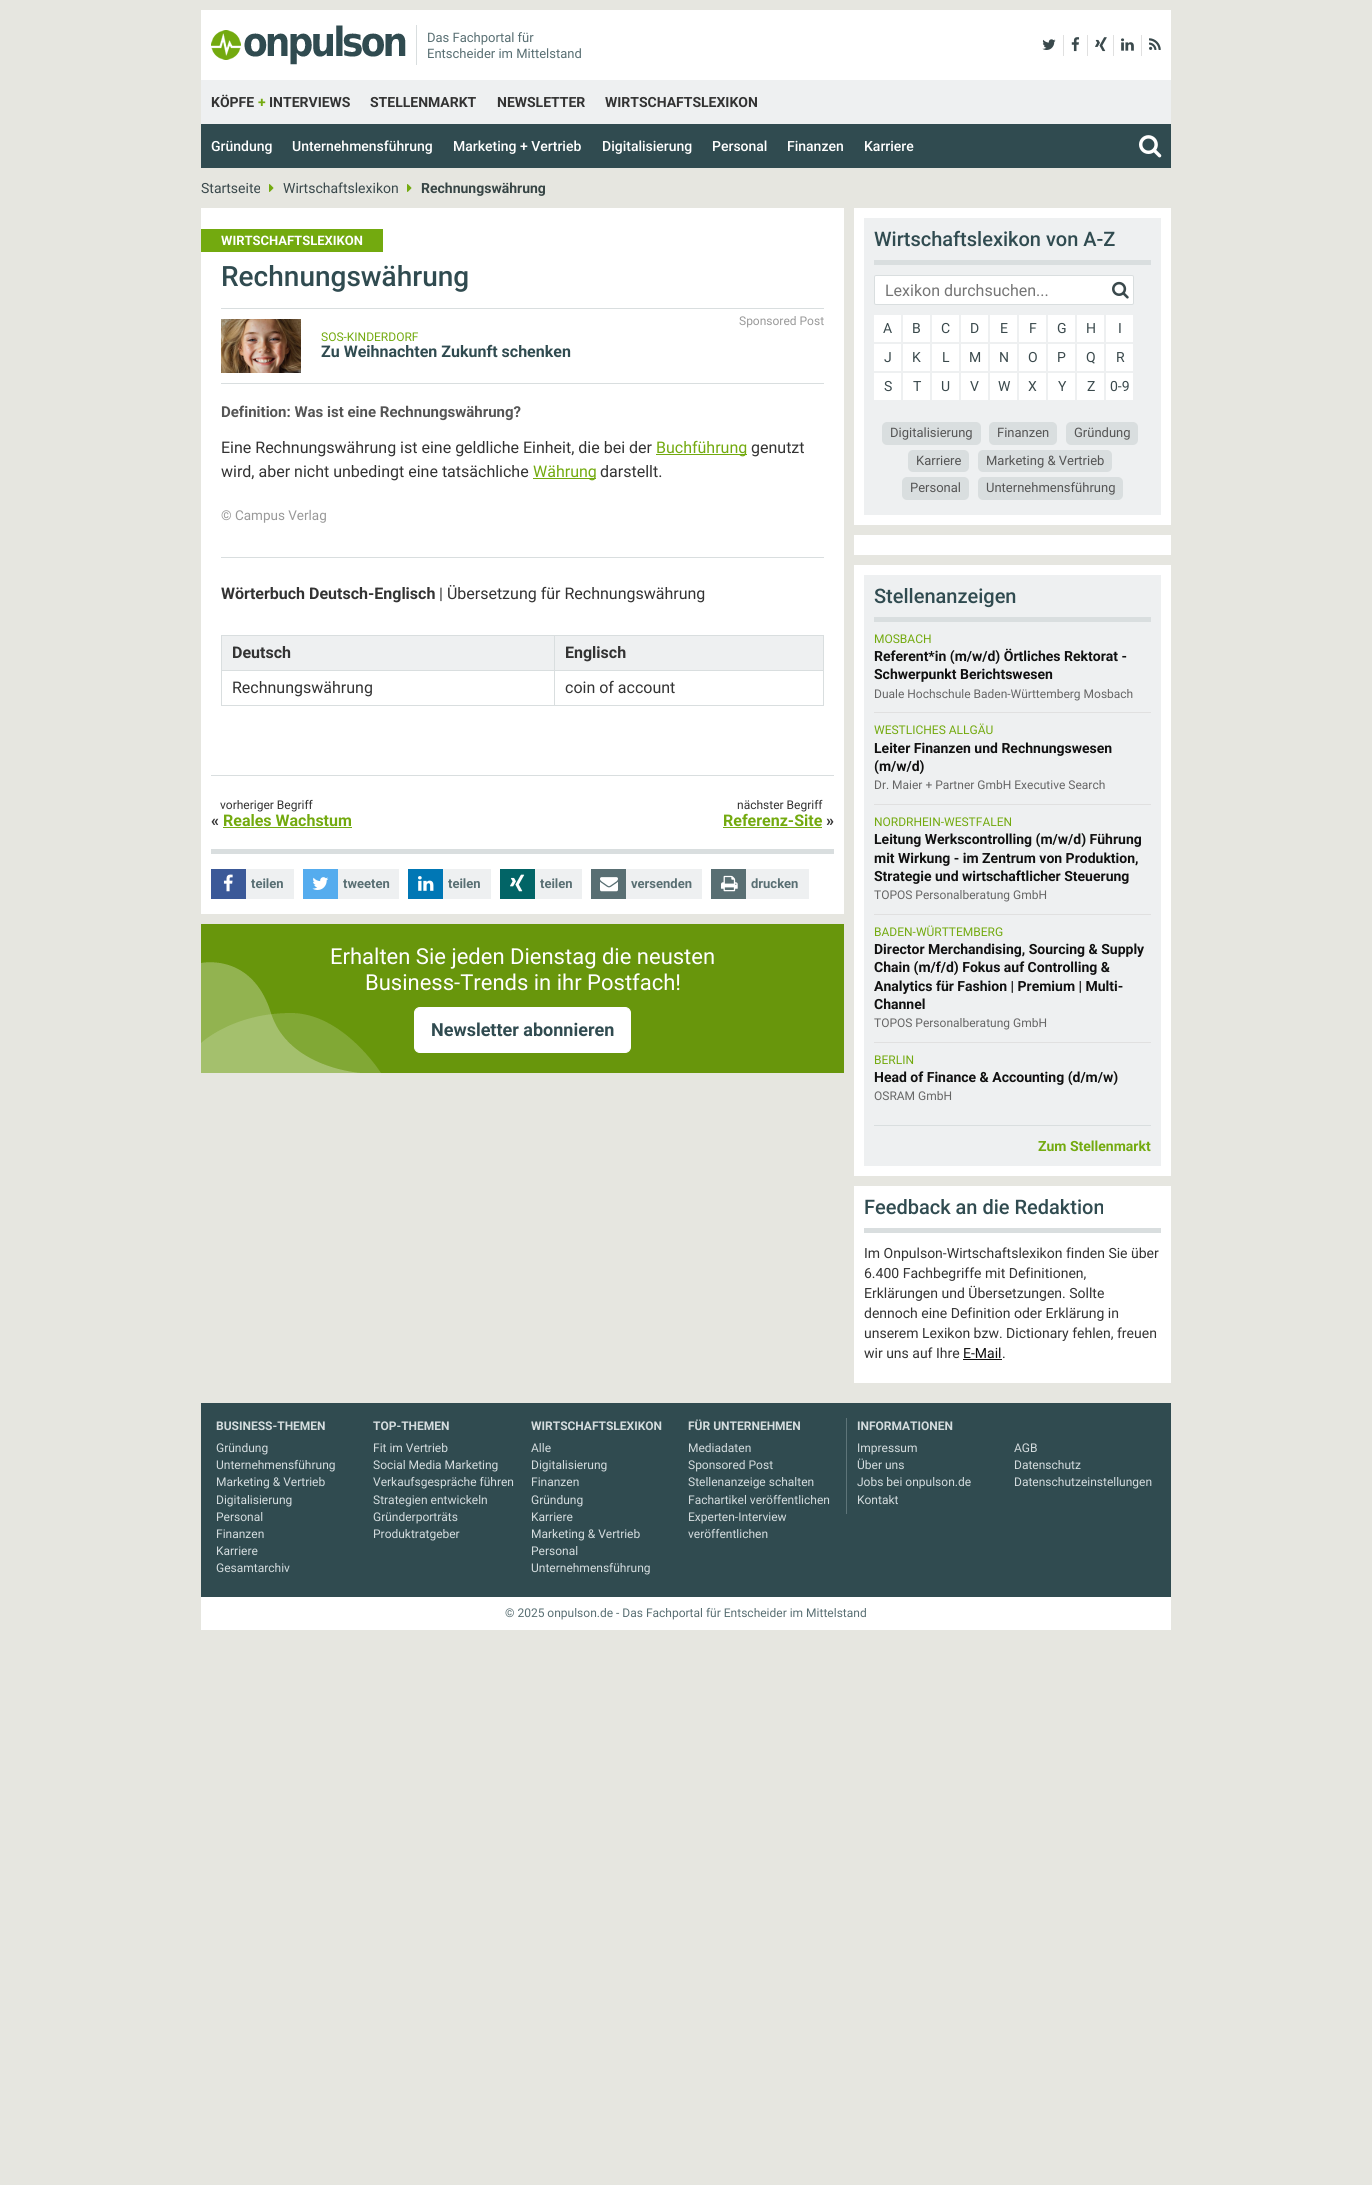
import math
import cairo

surface = cairo.ImageSurface(cairo.FORMAT_RGB24, 1372, 2185)
ctx = cairo.Context(surface)
options = cairo.FontOptions()
options.set_hint_metrics(cairo.HINT_METRICS_OFF)
options.set_hint_style(cairo.HINT_STYLE_NONE)
ctx.set_font_options(options)
ctx.set_miter_limit(4)


def round_rect(x, y, w, h, r):
    ctx.new_sub_path()
    for i, (u, v) in enumerate([(x + w - r, y + h - r), (x + r, y + h - r), (x + r, y + r), (x + w - r, y + r)]):
        ctx.arc(u, v, r, i * math.pi / 2, (i + 1) * math.pi / 2)
    ctx.close_path()


def picture(path, x, y, w, h):
    ctx.save()
    ctx.set_source_surface(cairo.ImageSurface.create_from_png(path), x, y)
    ctx.rectangle(x, y, w, h)
    ctx.fill()
    ctx.restore()


ctx.set_source_rgb(0.902, 0.902, 0.878)
ctx.paint()
ctx.set_source_rgb(1, 1, 1)
ctx.rectangle(201, 10, 970, 70)
ctx.fill()
picture("img1.png", 211, 25, 195, 40)
ctx.set_source_rgb(0.851, 0.871, 0.875)
ctx.rectangle(416, 25, 1, 40)
ctx.fill()
ctx.select_font_face("Roboto")
ctx.set_font_size(13)
ctx.set_source_rgb(0.349, 0.435, 0.451)
ctx.move_to(427, 42)
ctx.show_text("Das Fachportal für")
ctx.move_to(427, 58)
ctx.show_text("Entscheider im Mittelstand")
ctx.set_source_rgb(0.878, 0.878, 0.878)
ctx.rectangle(1063, 35, 1, 21)
ctx.fill()
picture("img2.png", 1042, 39, 14, 11)
ctx.rectangle(1087, 35, 1, 21)
ctx.fill()
picture("img3.png", 1071, 37, 9, 15)
ctx.rectangle(1113, 35, 1, 21)
ctx.fill()
picture("img4.png", 1095, 37, 12, 15)
ctx.rectangle(1141, 35, 1, 21)
ctx.fill()
picture("img5.png", 1121, 38, 13, 13)
picture("img6.png", 1149, 38, 12, 12)
ctx.set_source_rgb(0.933, 0.941, 0.945)
ctx.rectangle(201, 80, 970, 44)
ctx.fill()
ctx.select_font_face("Roboto", cairo.FONT_SLANT_NORMAL, cairo.FONT_WEIGHT_BOLD)
ctx.set_font_size(14)
ctx.set_source_rgb(0.2, 0.2, 0.2)
ctx.move_to(211, 107)
ctx.show_text("KÖPFE")
ctx.set_source_rgb(0.451, 0.667, 0.059)
ctx.move_to(258, 107)
ctx.show_text("+")
ctx.set_source_rgb(0.2, 0.2, 0.2)
ctx.move_to(269, 107)
ctx.show_text("INTERVIEWS")
ctx.move_to(370, 107)
ctx.show_text("STELLENMARKT")
ctx.move_to(497, 107)
ctx.show_text("NEWSLETTER")
ctx.move_to(605, 107)
ctx.show_text("WIRTSCHAFTSLEXIKON")
ctx.set_source_rgb(0.188, 0.294, 0.314)
ctx.rectangle(201, 124, 970, 44)
ctx.fill()
ctx.select_font_face("Roboto Medium")
ctx.set_source_rgb(1, 1, 1)
ctx.move_to(211, 151)
ctx.show_text("Gründung")
ctx.move_to(292, 151)
ctx.show_text("Unternehmensführung")
ctx.move_to(453, 151)
ctx.show_text("Marketing + Vertrieb")
ctx.move_to(602, 151)
ctx.show_text("Digitalisierung")
ctx.move_to(712, 151)
ctx.show_text("Personal")
ctx.move_to(787, 151)
ctx.show_text("Finanzen")
ctx.move_to(864, 151)
ctx.show_text("Karriere")
picture("img7.png", 1139, 135, 23, 23)
ctx.select_font_face("Roboto")
ctx.set_source_rgb(0.227, 0.286, 0.298)
ctx.move_to(201, 193)
ctx.show_text("Startseite")
picture("img8.png", 269, 184, 5, 8)
ctx.move_to(283, 193)
ctx.show_text("Wirtschaftslexikon")
picture("img8.png", 407, 184, 5, 8)
ctx.select_font_face("Roboto", cairo.FONT_SLANT_NORMAL, cairo.FONT_WEIGHT_BOLD)
ctx.set_source_rgb(0.216, 0.271, 0.271)
ctx.move_to(421, 193)
ctx.show_text("Rechnungswährung")
ctx.set_source_rgb(1, 1, 1)
ctx.rectangle(201, 208, 643, 706)
ctx.fill()
ctx.set_source_rgb(0.451, 0.667, 0.059)
ctx.rectangle(201, 229, 182, 23)
ctx.fill()
ctx.set_font_size(13)
ctx.set_source_rgb(1, 1, 1)
ctx.move_to(221, 245)
ctx.show_text("WIRTSCHAFTSLEXIKON")
ctx.select_font_face("Roboto Medium")
ctx.set_font_size(28)
ctx.set_source_rgb(0.188, 0.294, 0.314)
ctx.move_to(221, 286)
ctx.show_text("Rechnungswährung")
ctx.set_source_rgb(0.851, 0.871, 0.875)
ctx.rectangle(221, 308, 603, 1)
ctx.fill()
ctx.rectangle(221, 383, 603, 1)
ctx.fill()
picture("img9.png", 221, 319, 80, 54)
ctx.select_font_face("Roboto")
ctx.set_font_size(12)
ctx.set_source_rgb(0.451, 0.667, 0.059)
ctx.move_to(321, 341)
ctx.show_text("SOS-KINDERDORF")
ctx.select_font_face("Roboto", cairo.FONT_SLANT_NORMAL, cairo.FONT_WEIGHT_BOLD)
ctx.set_font_size(16)
ctx.set_source_rgb(0.188, 0.294, 0.314)
ctx.move_to(321, 357)
ctx.show_text("Zu Weihnachten Zukunft schenken")
ctx.select_font_face("Roboto")
ctx.set_font_size(12)
ctx.set_source_rgb(0.6, 0.6, 0.6)
ctx.move_to(739, 325)
ctx.show_text("Sponsored Post")
ctx.select_font_face("Roboto", cairo.FONT_SLANT_NORMAL, cairo.FONT_WEIGHT_BOLD)
ctx.set_font_size(15)
ctx.set_source_rgb(0.333, 0.333, 0.333)
ctx.move_to(221, 417)
ctx.show_text("Definition: Was ist eine Rechnungswährung?")
ctx.select_font_face("Roboto")
ctx.set_font_size(16)
ctx.set_source_rgb(0.2, 0.2, 0.2)
ctx.move_to(221, 453)
ctx.show_text("Eine Rechnungswährung ist eine geldliche Einheit, die bei der")
ctx.set_source_rgb(0.451, 0.667, 0.059)
ctx.rectangle(656, 454, 91, 1)
ctx.fill()
ctx.move_to(656, 453)
ctx.show_text("Buchführung")
ctx.set_source_rgb(0.2, 0.2, 0.2)
ctx.move_to(751, 453)
ctx.show_text("genutzt")
ctx.move_to(221, 477)
ctx.show_text("wird, aber nicht unbedingt eine tatsächliche")
ctx.set_source_rgb(0.451, 0.667, 0.059)
ctx.rectangle(533, 478, 63, 1)
ctx.fill()
ctx.move_to(533, 477)
ctx.show_text("Währung")
ctx.set_source_rgb(0.2, 0.2, 0.2)
ctx.move_to(600, 477)
ctx.show_text("darstellt.")
ctx.set_font_size(13.5)
ctx.set_source_rgb(0.6, 0.6, 0.6)
ctx.move_to(221, 520)
ctx.show_text("© Campus Verlag")
ctx.set_source_rgb(0.851, 0.871, 0.875)
ctx.rectangle(221, 557, 603, 1)
ctx.fill()
ctx.select_font_face("Roboto", cairo.FONT_SLANT_NORMAL, cairo.FONT_WEIGHT_BOLD)
ctx.set_font_size(16)
ctx.set_source_rgb(0.2, 0.2, 0.2)
ctx.move_to(221, 599)
ctx.show_text("Wörterbuch Deutsch-Englisch")
ctx.select_font_face("Roboto")
ctx.move_to(439, 599)
ctx.show_text("| Übersetzung für Rechnungswährung")
ctx.set_source_rgb(0.851, 0.871, 0.875)
ctx.rectangle(221, 635, 603, 1)
ctx.fill()
ctx.rectangle(823, 635, 1, 71)
ctx.fill()
ctx.rectangle(221, 705, 603, 1)
ctx.fill()
ctx.rectangle(221, 635, 1, 71)
ctx.fill()
ctx.set_source_rgb(0.933, 0.941, 0.945)
ctx.rectangle(222, 636, 601, 34)
ctx.fill()
ctx.select_font_face("Roboto", cairo.FONT_SLANT_NORMAL, cairo.FONT_WEIGHT_BOLD)
ctx.set_source_rgb(0.2, 0.2, 0.2)
ctx.move_to(232, 658)
ctx.show_text("Deutsch")
ctx.set_source_rgb(0.851, 0.871, 0.875)
ctx.rectangle(554, 670, 270, 1)
ctx.fill()
ctx.rectangle(554, 670, 1, 36)
ctx.fill()
ctx.rectangle(221, 670, 334, 1)
ctx.fill()
ctx.rectangle(554, 635, 1, 36)
ctx.fill()
ctx.set_source_rgb(0.2, 0.2, 0.2)
ctx.move_to(565, 658)
ctx.show_text("Englisch")
ctx.select_font_face("Roboto")
ctx.move_to(232, 693)
ctx.show_text("Rechnungswährung")
ctx.move_to(565, 693)
ctx.show_text("coin of account")
ctx.set_source_rgb(0.851, 0.871, 0.875)
ctx.rectangle(211, 775, 623, 1)
ctx.fill()
ctx.set_font_size(12)
ctx.set_source_rgb(0.2, 0.2, 0.2)
ctx.move_to(220, 809)
ctx.show_text("vorheriger Begriff")
ctx.select_font_face("Roboto", cairo.FONT_SLANT_NORMAL, cairo.FONT_WEIGHT_BOLD)
ctx.set_font_size(16)
ctx.move_to(211, 826)
ctx.show_text("«")
ctx.set_source_rgb(0.451, 0.667, 0.059)
ctx.move_to(223, 826)
ctx.show_text("Reales Wachstum")
ctx.rectangle(223, 827, 129, 1)
ctx.fill()
ctx.select_font_face("Roboto")
ctx.set_font_size(12)
ctx.set_source_rgb(0.2, 0.2, 0.2)
ctx.move_to(737, 809)
ctx.show_text("nächster Begriff")
ctx.select_font_face("Roboto", cairo.FONT_SLANT_NORMAL, cairo.FONT_WEIGHT_BOLD)
ctx.set_font_size(16)
ctx.set_source_rgb(0.451, 0.667, 0.059)
ctx.move_to(723, 826)
ctx.show_text("Referenz-Site")
ctx.rectangle(723, 827, 99, 1)
ctx.fill()
ctx.set_source_rgb(0.2, 0.2, 0.2)
ctx.move_to(826, 826)
ctx.show_text("»")
ctx.set_source_rgb(0.851, 0.871, 0.875)
ctx.rectangle(211, 849, 623, 5)
ctx.fill()
ctx.set_source_rgb(0.933, 0.941, 0.945)
ctx.rectangle(246, 869, 48, 30)
ctx.fill()
ctx.set_source_rgb(0.231, 0.349, 0.596)
ctx.rectangle(211, 869, 35, 30)
ctx.fill()
picture("img10.png", 223, 874, 10, 18)
ctx.set_font_size(13)
ctx.set_source_rgb(0.349, 0.435, 0.451)
ctx.move_to(251, 888)
ctx.show_text("teilen")
ctx.set_source_rgb(0.933, 0.941, 0.945)
ctx.rectangle(338, 869, 61, 30)
ctx.fill()
ctx.set_source_rgb(0.333, 0.675, 0.933)
ctx.rectangle(303, 869, 35, 30)
ctx.fill()
picture("img11.png", 312, 877, 17, 13)
ctx.set_source_rgb(0.349, 0.435, 0.451)
ctx.move_to(343, 888)
ctx.show_text("tweeten")
ctx.set_source_rgb(0.933, 0.941, 0.945)
ctx.rectangle(443, 869, 48, 30)
ctx.fill()
ctx.set_source_rgb(0, 0.467, 0.71)
ctx.rectangle(408, 869, 35, 30)
ctx.fill()
picture("img12.png", 418, 876, 16, 15)
ctx.set_source_rgb(0.349, 0.435, 0.451)
ctx.move_to(448, 888)
ctx.show_text("teilen")
ctx.set_source_rgb(0.933, 0.941, 0.945)
ctx.rectangle(535, 869, 47, 30)
ctx.fill()
ctx.set_source_rgb(0.008, 0.392, 0.4)
ctx.rectangle(500, 869, 35, 30)
ctx.fill()
picture("img13.png", 510, 874, 15, 18)
ctx.set_source_rgb(0.349, 0.435, 0.451)
ctx.move_to(540, 888)
ctx.show_text("teilen")
ctx.set_source_rgb(0.933, 0.941, 0.945)
ctx.rectangle(626, 869, 76, 30)
ctx.fill()
ctx.set_source_rgb(0.349, 0.435, 0.451)
ctx.rectangle(591, 869, 35, 30)
ctx.fill()
picture("img14.png", 600, 877, 18, 15)
ctx.move_to(631, 888)
ctx.show_text("versenden")
ctx.set_source_rgb(0.933, 0.941, 0.945)
ctx.rectangle(746, 869, 63, 30)
ctx.fill()
ctx.set_source_rgb(0.349, 0.435, 0.451)
ctx.rectangle(711, 869, 35, 30)
ctx.fill()
picture("img15.png", 721, 875, 17, 17)
ctx.move_to(751, 888)
ctx.show_text("drucken")
ctx.set_source_rgb(0.408, 0.588, 0.047)
ctx.rectangle(201, 924, 643, 149)
ctx.fill()
picture("img16.png", 201, 962, 180, 111)
ctx.select_font_face("Roboto")
ctx.set_font_size(22)
ctx.set_source_rgb(1, 1, 1)
ctx.move_to(330, 964)
ctx.show_text("Erhalten Sie jeden Dienstag die neusten")
ctx.move_to(365, 990)
ctx.show_text("Business-Trends in ihr Postfach!")
round_rect(414.5, 1007.5, 216, 45, 5.5)
ctx.fill_preserve()
ctx.set_line_width(1)
ctx.stroke()
ctx.select_font_face("Roboto", cairo.FONT_SLANT_NORMAL, cairo.FONT_WEIGHT_BOLD)
ctx.set_font_size(18)
ctx.set_source_rgb(0.188, 0.294, 0.314)
ctx.move_to(431, 1036)
ctx.show_text("Newsletter abonnieren")
ctx.set_source_rgb(0.933, 0.941, 0.945)
ctx.rectangle(859, 213, 307, 307)
ctx.fill_preserve()
ctx.set_source_rgb(1, 1, 1)
ctx.set_line_width(10)
ctx.stroke()
ctx.set_source_rgb(0.851, 0.871, 0.875)
ctx.rectangle(874, 260, 277, 5)
ctx.fill()
ctx.select_font_face("Roboto Medium")
ctx.set_font_size(20)
ctx.set_source_rgb(0.188, 0.294, 0.314)
ctx.move_to(874, 246)
ctx.show_text("Wirtschaftslexikon von A-Z")
ctx.set_source_rgb(1, 1, 1)
round_rect(874.5, 275.5, 259, 29, 1.5)
ctx.fill_preserve()
ctx.set_source_rgb(0.851, 0.871, 0.875)
ctx.set_line_width(1)
ctx.stroke()
ctx.select_font_face("Roboto")
ctx.set_font_size(16)
ctx.set_source_rgb(0.459, 0.459, 0.459)
ctx.move_to(885, 296)
ctx.show_text("Lexikon durchsuchen...")
picture("img17.png", 1112, 281, 17, 18)
ctx.set_source_rgb(1, 1, 1)
ctx.rectangle(874, 315, 27, 27)
ctx.fill()
ctx.set_font_size(14)
ctx.set_source_rgb(0.227, 0.286, 0.298)
ctx.move_to(883, 333)
ctx.show_text("A")
ctx.set_source_rgb(1, 1, 1)
ctx.rectangle(903, 315, 27, 27)
ctx.fill()
ctx.set_source_rgb(0.227, 0.286, 0.298)
ctx.move_to(912, 333)
ctx.show_text("B")
ctx.set_source_rgb(1, 1, 1)
ctx.rectangle(932, 315, 27, 27)
ctx.fill()
ctx.set_source_rgb(0.227, 0.286, 0.298)
ctx.move_to(941, 333)
ctx.show_text("C")
ctx.set_source_rgb(1, 1, 1)
ctx.rectangle(961, 315, 27, 27)
ctx.fill()
ctx.set_source_rgb(0.227, 0.286, 0.298)
ctx.move_to(970, 333)
ctx.show_text("D")
ctx.set_source_rgb(1, 1, 1)
ctx.rectangle(990, 315, 27, 27)
ctx.fill()
ctx.set_source_rgb(0.227, 0.286, 0.298)
ctx.move_to(1000, 333)
ctx.show_text("E")
ctx.set_source_rgb(1, 1, 1)
ctx.rectangle(1019, 315, 27, 27)
ctx.fill()
ctx.set_source_rgb(0.227, 0.286, 0.298)
ctx.move_to(1029, 333)
ctx.show_text("F")
ctx.set_source_rgb(1, 1, 1)
ctx.rectangle(1048, 315, 27, 27)
ctx.fill()
ctx.set_source_rgb(0.227, 0.286, 0.298)
ctx.move_to(1057, 333)
ctx.show_text("G")
ctx.set_source_rgb(1, 1, 1)
ctx.rectangle(1077, 315, 27, 27)
ctx.fill()
ctx.set_source_rgb(0.227, 0.286, 0.298)
ctx.move_to(1086, 333)
ctx.show_text("H")
ctx.set_source_rgb(1, 1, 1)
ctx.rectangle(1106, 315, 27, 27)
ctx.fill()
ctx.set_source_rgb(0.227, 0.286, 0.298)
ctx.move_to(1118, 333)
ctx.show_text("I")
ctx.set_source_rgb(1, 1, 1)
ctx.rectangle(874, 344, 27, 27)
ctx.fill()
ctx.set_source_rgb(0.227, 0.286, 0.298)
ctx.move_to(884, 362)
ctx.show_text("J")
ctx.set_source_rgb(1, 1, 1)
ctx.rectangle(903, 344, 27, 27)
ctx.fill()
ctx.set_source_rgb(0.227, 0.286, 0.298)
ctx.move_to(912, 362)
ctx.show_text("K")
ctx.set_source_rgb(1, 1, 1)
ctx.rectangle(932, 344, 27, 27)
ctx.fill()
ctx.set_source_rgb(0.227, 0.286, 0.298)
ctx.move_to(942, 362)
ctx.show_text("L")
ctx.set_source_rgb(1, 1, 1)
ctx.rectangle(961, 344, 27, 27)
ctx.fill()
ctx.set_source_rgb(0.227, 0.286, 0.298)
ctx.move_to(969, 362)
ctx.show_text("M")
ctx.set_source_rgb(1, 1, 1)
ctx.rectangle(990, 344, 27, 27)
ctx.fill()
ctx.set_source_rgb(0.227, 0.286, 0.298)
ctx.move_to(999, 362)
ctx.show_text("N")
ctx.set_source_rgb(1, 1, 1)
ctx.rectangle(1019, 344, 27, 27)
ctx.fill()
ctx.set_source_rgb(0.227, 0.286, 0.298)
ctx.move_to(1028, 362)
ctx.show_text("O")
ctx.set_source_rgb(1, 1, 1)
ctx.rectangle(1048, 344, 27, 27)
ctx.fill()
ctx.set_source_rgb(0.227, 0.286, 0.298)
ctx.move_to(1057, 362)
ctx.show_text("P")
ctx.set_source_rgb(1, 1, 1)
ctx.rectangle(1077, 344, 27, 27)
ctx.fill()
ctx.set_source_rgb(0.227, 0.286, 0.298)
ctx.move_to(1086, 362)
ctx.show_text("Q")
ctx.set_source_rgb(1, 1, 1)
ctx.rectangle(1106, 344, 27, 27)
ctx.fill()
ctx.set_source_rgb(0.227, 0.286, 0.298)
ctx.move_to(1116, 362)
ctx.show_text("R")
ctx.set_source_rgb(1, 1, 1)
ctx.rectangle(874, 373, 27, 27)
ctx.fill()
ctx.set_source_rgb(0.227, 0.286, 0.298)
ctx.move_to(884, 391)
ctx.show_text("S")
ctx.set_source_rgb(1, 1, 1)
ctx.rectangle(903, 373, 27, 27)
ctx.fill()
ctx.set_source_rgb(0.227, 0.286, 0.298)
ctx.move_to(913, 391)
ctx.show_text("T")
ctx.set_source_rgb(1, 1, 1)
ctx.rectangle(932, 373, 27, 27)
ctx.fill()
ctx.set_source_rgb(0.227, 0.286, 0.298)
ctx.move_to(941, 391)
ctx.show_text("U")
ctx.set_source_rgb(1, 1, 1)
ctx.rectangle(961, 373, 27, 27)
ctx.fill()
ctx.set_source_rgb(0.227, 0.286, 0.298)
ctx.move_to(970, 391)
ctx.show_text("V")
ctx.set_source_rgb(1, 1, 1)
ctx.rectangle(990, 373, 27, 27)
ctx.fill()
ctx.set_source_rgb(0.227, 0.286, 0.298)
ctx.move_to(998, 391)
ctx.show_text("W")
ctx.set_source_rgb(1, 1, 1)
ctx.rectangle(1019, 373, 27, 27)
ctx.fill()
ctx.set_source_rgb(0.227, 0.286, 0.298)
ctx.move_to(1028, 391)
ctx.show_text("X")
ctx.set_source_rgb(1, 1, 1)
ctx.rectangle(1048, 373, 27, 27)
ctx.fill()
ctx.set_source_rgb(0.227, 0.286, 0.298)
ctx.move_to(1058, 391)
ctx.show_text("Y")
ctx.set_source_rgb(1, 1, 1)
ctx.rectangle(1077, 373, 27, 27)
ctx.fill()
ctx.set_source_rgb(0.227, 0.286, 0.298)
ctx.move_to(1087, 391)
ctx.show_text("Z")
ctx.set_source_rgb(1, 1, 1)
ctx.rectangle(1106, 373, 27, 27)
ctx.fill()
ctx.set_source_rgb(0.227, 0.286, 0.298)
ctx.move_to(1110, 391)
ctx.show_text("0-9")
ctx.set_source_rgb(0.851, 0.871, 0.875)
round_rect(882, 422, 99, 23, 5)
ctx.fill()
ctx.set_font_size(13)
ctx.set_source_rgb(0.333, 0.333, 0.333)
ctx.move_to(890, 437)
ctx.show_text("Digitalisierung")
ctx.set_source_rgb(0.851, 0.871, 0.875)
round_rect(989, 422, 68, 23, 5)
ctx.fill()
ctx.set_source_rgb(0.333, 0.333, 0.333)
ctx.move_to(997, 437)
ctx.show_text("Finanzen")
ctx.set_source_rgb(0.851, 0.871, 0.875)
round_rect(1066, 422, 72, 23, 5)
ctx.fill()
ctx.set_source_rgb(0.333, 0.333, 0.333)
ctx.move_to(1074, 437)
ctx.show_text("Gründung")
ctx.set_source_rgb(0.851, 0.871, 0.875)
round_rect(908, 450, 61, 22, 5)
ctx.fill()
ctx.set_source_rgb(0.333, 0.333, 0.333)
ctx.move_to(916, 465)
ctx.show_text("Karriere")
ctx.set_source_rgb(0.851, 0.871, 0.875)
round_rect(978, 450, 134, 22, 5)
ctx.fill()
ctx.set_source_rgb(0.333, 0.333, 0.333)
ctx.move_to(986, 465)
ctx.show_text("Marketing & Vertrieb")
ctx.set_source_rgb(0.851, 0.871, 0.875)
round_rect(902, 477, 67, 23, 5)
ctx.fill()
ctx.set_source_rgb(0.333, 0.333, 0.333)
ctx.move_to(910, 492)
ctx.show_text("Personal")
ctx.set_source_rgb(0.851, 0.871, 0.875)
round_rect(978, 477, 145, 23, 5)
ctx.fill()
ctx.set_source_rgb(0.333, 0.333, 0.333)
ctx.move_to(986, 492)
ctx.show_text("Unternehmensführung")
ctx.set_source_rgb(1, 1, 1)
ctx.rectangle(854, 535, 317, 20)
ctx.fill()
ctx.set_source_rgb(0.933, 0.941, 0.945)
ctx.rectangle(859, 570, 307, 601)
ctx.fill_preserve()
ctx.set_source_rgb(1, 1, 1)
ctx.set_line_width(10)
ctx.stroke()
ctx.set_source_rgb(0.851, 0.871, 0.875)
ctx.rectangle(874, 617, 277, 5)
ctx.fill()
ctx.select_font_face("Roboto Medium")
ctx.set_font_size(20)
ctx.set_source_rgb(0.188, 0.294, 0.314)
ctx.move_to(874, 603)
ctx.show_text("Stellenanzeigen")
ctx.set_source_rgb(0.878, 0.878, 0.878)
ctx.rectangle(874, 712, 277, 1)
ctx.fill()
ctx.select_font_face("Roboto")
ctx.set_font_size(12)
ctx.set_source_rgb(0.451, 0.667, 0.059)
ctx.move_to(874, 643)
ctx.show_text("MOSBACH")
ctx.select_font_face("Roboto", cairo.FONT_SLANT_NORMAL, cairo.FONT_WEIGHT_BOLD)
ctx.set_font_size(14)
ctx.set_source_rgb(0.063, 0.063, 0.063)
ctx.move_to(874, 661)
ctx.show_text("Referent*in (m/w/d) Örtliches Rektorat -")
ctx.move_to(874, 679)
ctx.show_text("Schwerpunkt Berichtswesen")
ctx.select_font_face("Roboto")
ctx.set_font_size(12)
ctx.set_source_rgb(0.4, 0.4, 0.4)
ctx.move_to(874, 698)
ctx.show_text("Duale Hochschule Baden-Württemberg Mosbach")
ctx.set_source_rgb(0.878, 0.878, 0.878)
ctx.rectangle(874, 804, 277, 1)
ctx.fill()
ctx.set_source_rgb(0.451, 0.667, 0.059)
ctx.move_to(874, 734)
ctx.show_text("WESTLICHES ALLGÄU")
ctx.select_font_face("Roboto", cairo.FONT_SLANT_NORMAL, cairo.FONT_WEIGHT_BOLD)
ctx.set_font_size(14)
ctx.set_source_rgb(0.063, 0.063, 0.063)
ctx.move_to(874, 753)
ctx.show_text("Leiter Finanzen und Rechnungswesen")
ctx.move_to(874, 771)
ctx.show_text("(m/w/d)")
ctx.select_font_face("Roboto")
ctx.set_font_size(12)
ctx.set_source_rgb(0.4, 0.4, 0.4)
ctx.move_to(874, 789)
ctx.show_text("Dr. Maier + Partner GmbH Executive Search")
ctx.set_source_rgb(0.878, 0.878, 0.878)
ctx.rectangle(874, 914, 277, 1)
ctx.fill()
ctx.set_source_rgb(0.451, 0.667, 0.059)
ctx.move_to(874, 826)
ctx.show_text("NORDRHEIN-WESTFALEN")
ctx.select_font_face("Roboto", cairo.FONT_SLANT_NORMAL, cairo.FONT_WEIGHT_BOLD)
ctx.set_font_size(14)
ctx.set_source_rgb(0.063, 0.063, 0.063)
ctx.move_to(874, 844)
ctx.show_text("Leitung Werkscontrolling (m/w/d) Führung")
ctx.move_to(874, 863)
ctx.show_text("mit Wirkung - im Zentrum von Produktion,")
ctx.move_to(874, 881)
ctx.show_text("Strategie und wirtschaftlicher Steuerung")
ctx.select_font_face("Roboto")
ctx.set_font_size(12)
ctx.set_source_rgb(0.4, 0.4, 0.4)
ctx.move_to(874, 899)
ctx.show_text("TOPOS Personalberatung GmbH")
ctx.set_source_rgb(0.878, 0.878, 0.878)
ctx.rectangle(874, 1042, 277, 1)
ctx.fill()
ctx.set_source_rgb(0.451, 0.667, 0.059)
ctx.move_to(874, 936)
ctx.show_text("BADEN-WÜRTTEMBERG")
ctx.select_font_face("Roboto", cairo.FONT_SLANT_NORMAL, cairo.FONT_WEIGHT_BOLD)
ctx.set_font_size(14)
ctx.set_source_rgb(0.063, 0.063, 0.063)
ctx.move_to(874, 954)
ctx.show_text("Director Merchandising, Sourcing & Supply")
ctx.move_to(874, 972)
ctx.show_text("Chain (m/f/d) Fokus auf Controlling &")
ctx.move_to(874, 991)
ctx.show_text("Analytics für Fashion | Premium | Multi-")
ctx.move_to(874, 1009)
ctx.show_text("Channel")
ctx.select_font_face("Roboto")
ctx.set_font_size(12)
ctx.set_source_rgb(0.4, 0.4, 0.4)
ctx.move_to(874, 1027)
ctx.show_text("TOPOS Personalberatung GmbH")
ctx.set_source_rgb(0.451, 0.667, 0.059)
ctx.move_to(874, 1064)
ctx.show_text("BERLIN")
ctx.select_font_face("Roboto", cairo.FONT_SLANT_NORMAL, cairo.FONT_WEIGHT_BOLD)
ctx.set_font_size(14)
ctx.set_source_rgb(0.063, 0.063, 0.063)
ctx.move_to(874, 1082)
ctx.show_text("Head of Finance & Accounting (d/m/w)")
ctx.select_font_face("Roboto")
ctx.set_font_size(12)
ctx.set_source_rgb(0.4, 0.4, 0.4)
ctx.move_to(874, 1100)
ctx.show_text("OSRAM GmbH")
ctx.set_source_rgb(0.851, 0.871, 0.875)
ctx.rectangle(874, 1125, 277, 1)
ctx.fill()
ctx.select_font_face("Roboto", cairo.FONT_SLANT_NORMAL, cairo.FONT_WEIGHT_BOLD)
ctx.set_font_size(14)
ctx.set_source_rgb(0.451, 0.667, 0.059)
ctx.move_to(1038, 1151)
ctx.show_text("Zum Stellenmarkt")
ctx.set_source_rgb(1, 1, 1)
ctx.rectangle(854, 1186, 317, 197)
ctx.fill()
ctx.set_source_rgb(0.851, 0.871, 0.875)
ctx.rectangle(864, 1228, 297, 5)
ctx.fill()
ctx.select_font_face("Roboto Medium")
ctx.set_font_size(20)
ctx.set_source_rgb(0.188, 0.294, 0.314)
ctx.move_to(864, 1214)
ctx.show_text("Feedback an die Redaktion")
ctx.select_font_face("Roboto")
ctx.set_font_size(14)
ctx.set_source_rgb(0.2, 0.2, 0.2)
ctx.move_to(864, 1258)
ctx.show_text("Im Onpulson-Wirtschaftslexikon finden Sie über")
ctx.move_to(864, 1278)
ctx.show_text("6.400 Fachbegriffe mit Definitionen,")
ctx.move_to(864, 1298)
ctx.show_text("Erklärungen und Übersetzungen. Sollte")
ctx.move_to(864, 1318)
ctx.show_text("dennoch eine Definition oder Erklärung in")
ctx.move_to(864, 1338)
ctx.show_text("unserem Lexikon bzw. Dictionary fehlen, freuen")
ctx.move_to(864, 1358)
ctx.show_text("wir uns auf Ihre")
ctx.set_source_rgb(0.063, 0.063, 0.063)
ctx.move_to(963, 1358)
ctx.show_text("E-Mail")
ctx.rectangle(963, 1359, 39, 1)
ctx.fill()
ctx.set_source_rgb(0.2, 0.2, 0.2)
ctx.move_to(1002, 1358)
ctx.show_text(".")
ctx.set_source_rgb(0.188, 0.294, 0.314)
ctx.rectangle(201, 1403, 970, 194)
ctx.fill()
ctx.select_font_face("Roboto", cairo.FONT_SLANT_NORMAL, cairo.FONT_WEIGHT_BOLD)
ctx.set_font_size(12)
ctx.set_source_rgb(0.831, 0.863, 0.871)
ctx.move_to(216, 1430)
ctx.show_text("BUSINESS-THEMEN")
ctx.select_font_face("Roboto")
ctx.move_to(216, 1452)
ctx.show_text("Gründung")
ctx.move_to(216, 1469)
ctx.show_text("Unternehmensführung")
ctx.move_to(216, 1486)
ctx.show_text("Marketing & Vertrieb")
ctx.move_to(216, 1504)
ctx.show_text("Digitalisierung")
ctx.move_to(216, 1521)
ctx.show_text("Personal")
ctx.move_to(216, 1538)
ctx.show_text("Finanzen")
ctx.move_to(216, 1555)
ctx.show_text("Karriere")
ctx.move_to(216, 1572)
ctx.show_text("Gesamtarchiv")
ctx.select_font_face("Roboto", cairo.FONT_SLANT_NORMAL, cairo.FONT_WEIGHT_BOLD)
ctx.move_to(373, 1430)
ctx.show_text("TOP-THEMEN")
ctx.select_font_face("Roboto")
ctx.move_to(373, 1452)
ctx.show_text("Fit im Vertrieb")
ctx.move_to(373, 1469)
ctx.show_text("Social Media Marketing")
ctx.move_to(373, 1486)
ctx.show_text("Verkaufsgespräche führen")
ctx.move_to(373, 1504)
ctx.show_text("Strategien entwickeln")
ctx.move_to(373, 1521)
ctx.show_text("Gründerporträts")
ctx.move_to(373, 1538)
ctx.show_text("Produktratgeber")
ctx.select_font_face("Roboto", cairo.FONT_SLANT_NORMAL, cairo.FONT_WEIGHT_BOLD)
ctx.move_to(531, 1430)
ctx.show_text("WIRTSCHAFTSLEXIKON")
ctx.select_font_face("Roboto")
ctx.move_to(531, 1452)
ctx.show_text("Alle")
ctx.move_to(531, 1469)
ctx.show_text("Digitalisierung")
ctx.move_to(531, 1486)
ctx.show_text("Finanzen")
ctx.move_to(531, 1504)
ctx.show_text("Gründung")
ctx.move_to(531, 1521)
ctx.show_text("Karriere")
ctx.move_to(531, 1538)
ctx.show_text("Marketing & Vertrieb")
ctx.move_to(531, 1555)
ctx.show_text("Personal")
ctx.move_to(531, 1572)
ctx.show_text("Unternehmensführung")
ctx.select_font_face("Roboto", cairo.FONT_SLANT_NORMAL, cairo.FONT_WEIGHT_BOLD)
ctx.move_to(688, 1430)
ctx.show_text("FÜR UNTERNEHMEN")
ctx.select_font_face("Roboto")
ctx.move_to(688, 1452)
ctx.show_text("Mediadaten")
ctx.move_to(688, 1469)
ctx.show_text("Sponsored Post")
ctx.move_to(688, 1486)
ctx.show_text("Stellenanzeige schalten")
ctx.move_to(688, 1504)
ctx.show_text("Fachartikel veröffentlichen")
ctx.move_to(688, 1521)
ctx.show_text("Experten-Interview")
ctx.move_to(688, 1538)
ctx.show_text("veröffentlichen")
ctx.set_source_rgb(0.369, 0.459, 0.475)
ctx.rectangle(846, 1418, 1, 96)
ctx.fill()
ctx.select_font_face("Roboto", cairo.FONT_SLANT_NORMAL, cairo.FONT_WEIGHT_BOLD)
ctx.set_source_rgb(0.831, 0.863, 0.871)
ctx.move_to(857, 1430)
ctx.show_text("INFORMATIONEN")
ctx.select_font_face("Roboto")
ctx.move_to(857, 1452)
ctx.show_text("Impressum")
ctx.move_to(857, 1469)
ctx.show_text("Über uns")
ctx.move_to(857, 1486)
ctx.show_text("Jobs bei onpulson.de")
ctx.move_to(857, 1504)
ctx.show_text("Kontakt")
ctx.move_to(1014, 1452)
ctx.show_text("AGB")
ctx.move_to(1014, 1469)
ctx.show_text("Datenschutz")
ctx.move_to(1014, 1486)
ctx.show_text("Datenschutzeinstellungen")
ctx.set_source_rgb(1, 1, 1)
ctx.rectangle(201, 1597, 970, 33)
ctx.fill()
ctx.set_source_rgb(0.349, 0.435, 0.451)
ctx.move_to(505, 1617)
ctx.show_text("© 2025 onpulson.de - Das Fachportal für Entscheider im Mittelstand")
surface.write_to_png("page.png")
